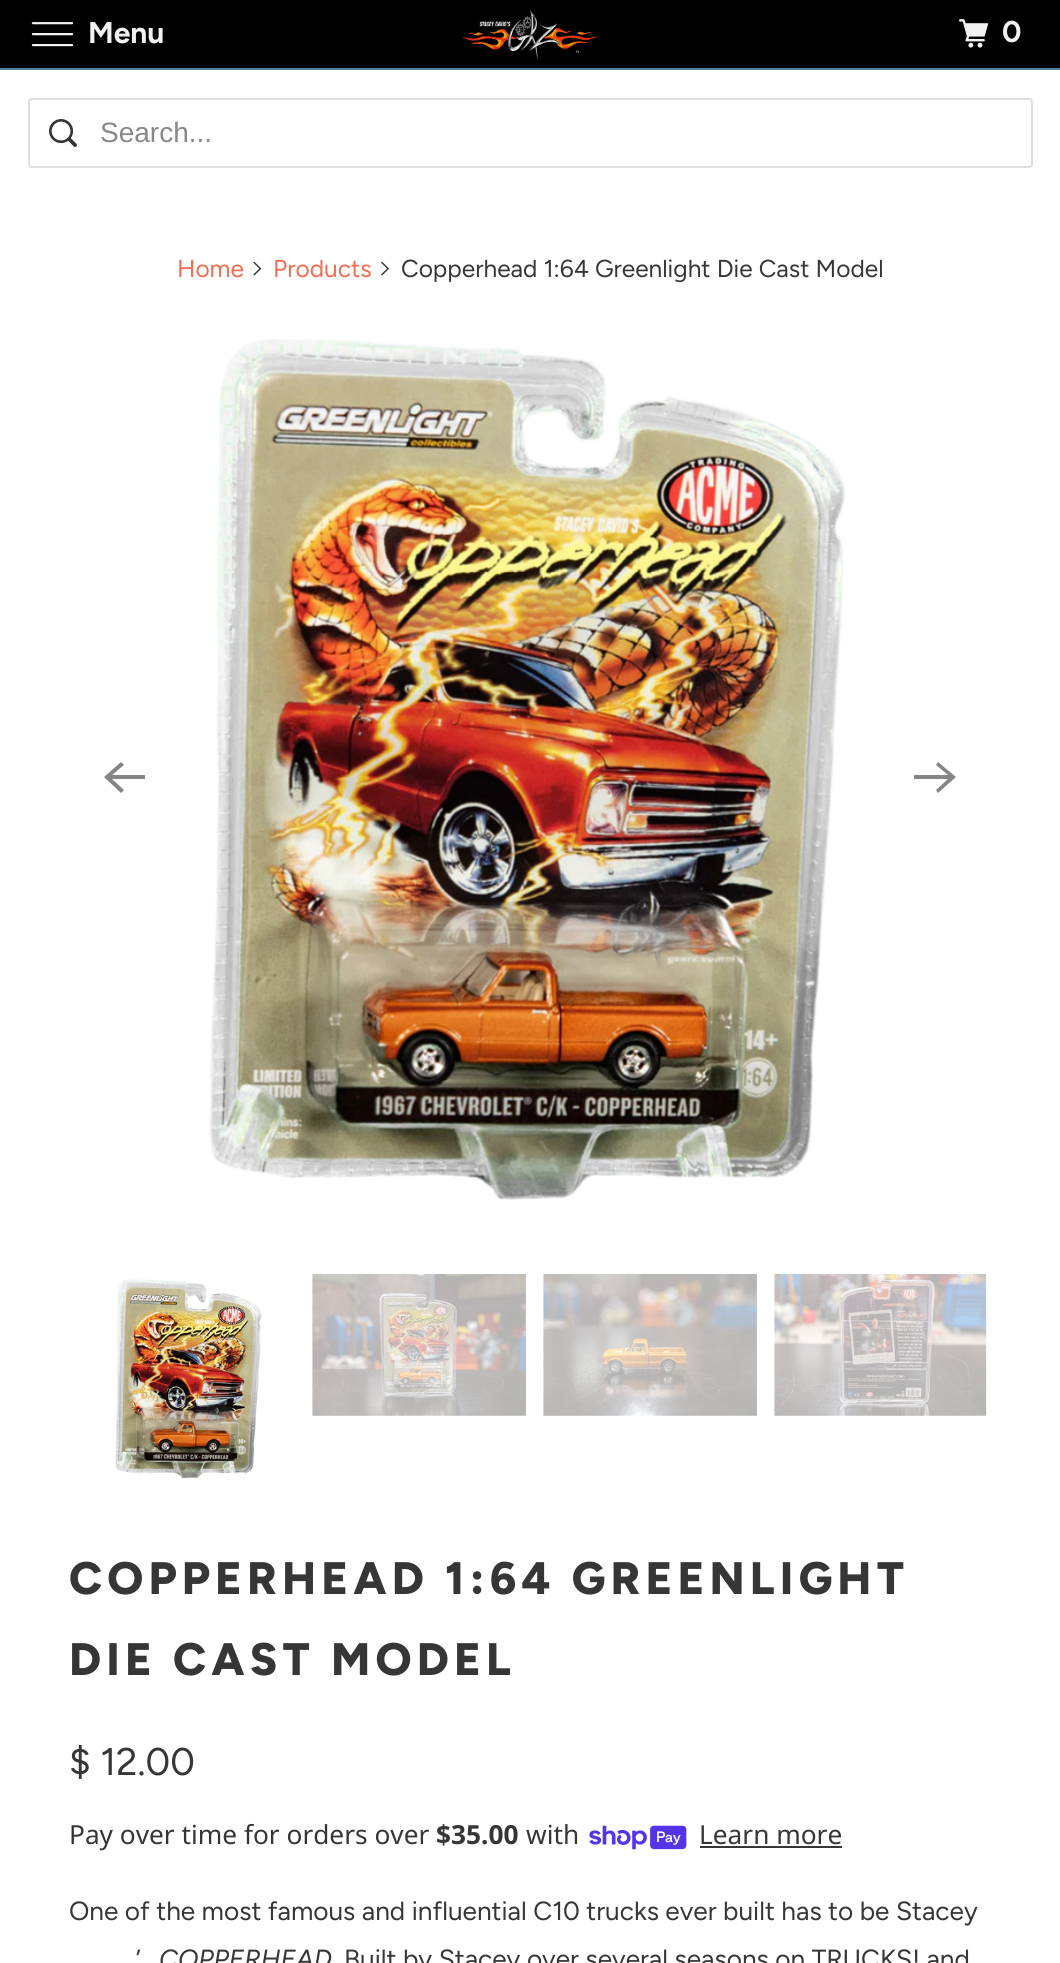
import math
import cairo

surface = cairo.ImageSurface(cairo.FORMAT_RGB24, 1060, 1963)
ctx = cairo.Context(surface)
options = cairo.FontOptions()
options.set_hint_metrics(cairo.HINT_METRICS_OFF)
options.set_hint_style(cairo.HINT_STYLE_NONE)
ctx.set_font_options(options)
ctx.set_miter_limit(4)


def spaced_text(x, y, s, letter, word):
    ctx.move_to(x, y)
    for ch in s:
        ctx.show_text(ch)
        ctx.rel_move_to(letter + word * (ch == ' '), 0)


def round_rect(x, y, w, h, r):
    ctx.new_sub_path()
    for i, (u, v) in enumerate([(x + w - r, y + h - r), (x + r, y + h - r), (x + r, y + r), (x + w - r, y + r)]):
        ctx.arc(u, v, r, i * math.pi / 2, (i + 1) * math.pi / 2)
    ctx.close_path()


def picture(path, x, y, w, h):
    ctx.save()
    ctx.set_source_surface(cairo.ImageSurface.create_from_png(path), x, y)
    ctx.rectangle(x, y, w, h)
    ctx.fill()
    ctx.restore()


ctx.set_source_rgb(0, 0, 0)
ctx.paint()
ctx.set_source_rgb(0.329, 0.506, 0.635)
ctx.rectangle(0, 68, 1060, 2)
ctx.fill()
picture("img1.png", 31, 22, 43, 25)
ctx.select_font_face("Figtree", cairo.FONT_SLANT_NORMAL, cairo.FONT_WEIGHT_BOLD)
ctx.set_font_size(30)
ctx.set_source_rgb(0.949, 0.949, 0.949)
ctx.move_to(88, 43)
ctx.show_text("Menu")
picture("img2.png", 462, 10, 136, 51)
picture("img3.png", 959, 19, 30, 29)
ctx.move_to(1002, 42)
ctx.show_text("0")
ctx.set_source_rgb(1, 1, 1)
ctx.rectangle(0, 70, 1060, 1893)
ctx.fill()
round_rect(29, 99, 1003, 68, 3)
ctx.set_source_rgb(0.875, 0.875, 0.875)
ctx.stroke()
picture("img4.png", 49, 119, 28, 28)
ctx.select_font_face("Liberation Sans")
ctx.set_font_size(28)
ctx.set_source_rgb(0.533, 0.533, 0.533)
ctx.move_to(100, 142)
ctx.show_text("Search...")
ctx.select_font_face("Figtree")
ctx.set_font_size(24.5)
ctx.set_source_rgb(0.949, 0.424, 0.31)
ctx.move_to(177, 277)
ctx.show_text("Home")
picture("img5.png", 253, 261, 9, 15)
ctx.move_to(273, 277)
ctx.show_text("Products")
picture("img6.png", 381, 261, 8, 15)
ctx.set_source_rgb(0.212, 0.212, 0.212)
ctx.move_to(401, 277)
ctx.show_text("Copperhead 1:64 Greenlight Die Cast Model")
ctx.set_source_rgb(0.522, 0.522, 0.522)
ctx.new_path()
ctx.move_to(145, 775)
ctx.line_to(112, 775)
ctx.line_to(124, 765)
ctx.line_to(121, 762)
ctx.line_to(104, 777)
ctx.line_to(121, 793)
ctx.line_to(124, 790)
ctx.line_to(112, 779)
ctx.line_to(145, 779)
ctx.close_path()
ctx.fill()
picture("img7.png", 209, 339, 637, 861)
ctx.new_path()
ctx.move_to(914, 779)
ctx.line_to(948, 779)
ctx.line_to(936, 790)
ctx.line_to(938, 793)
ctx.line_to(956, 777)
ctx.line_to(938, 762)
ctx.line_to(936, 765)
ctx.line_to(948, 775)
ctx.line_to(914, 775)
ctx.close_path()
ctx.fill()
picture("img8.png", 115, 1279, 147, 200)
picture("img9.png", 312, 1274, 214, 142)
picture("img10.png", 543, 1274, 214, 142)
picture("img11.png", 774, 1274, 213, 142)
ctx.select_font_face("Figtree ExtraBold")
ctx.set_font_size(45.5)
ctx.set_source_rgb(0.212, 0.212, 0.212)
spaced_text(69, 1594, "COPPERHEAD 1:64 GREENLIGHT", 5.25, 0)
spaced_text(69, 1675, "DIE CAST MODEL", 5.25, 0)
ctx.select_font_face("Figtree")
ctx.set_font_size(38.5)
ctx.move_to(69, 1775)
ctx.show_text("$ 12.00")
ctx.select_font_face("Noto Sans")
ctx.set_font_size(26.25)
ctx.move_to(69, 1844)
ctx.show_text("Pay over time for orders over")
ctx.select_font_face("Noto Sans", cairo.FONT_SLANT_NORMAL, cairo.FONT_WEIGHT_BOLD)
ctx.move_to(436, 1844)
ctx.show_text("$35.00")
ctx.select_font_face("Noto Sans")
ctx.move_to(526, 1844)
ctx.show_text("with")
picture("img12.png", 589, 1825, 98, 25)
ctx.move_to(699, 1844)
ctx.show_text("Learn more")
ctx.rectangle(700, 1846, 142, 2)
ctx.fill()
ctx.select_font_face("Figtree")
ctx.move_to(69, 1920)
ctx.show_text("One of the most famous and influential C10 trucks ever built has to be Stacey")
ctx.move_to(136, 1968)
ctx.show_text("’")
ctx.select_font_face("Figtree", cairo.FONT_SLANT_ITALIC)
ctx.move_to(159, 1968)
ctx.show_text("COPPERHEAD")
ctx.select_font_face("Figtree")
ctx.move_to(344, 1968)
ctx.show_text("Built by Stacey over several seasons on TRUCKS! and")
surface.write_to_png("page.png")
